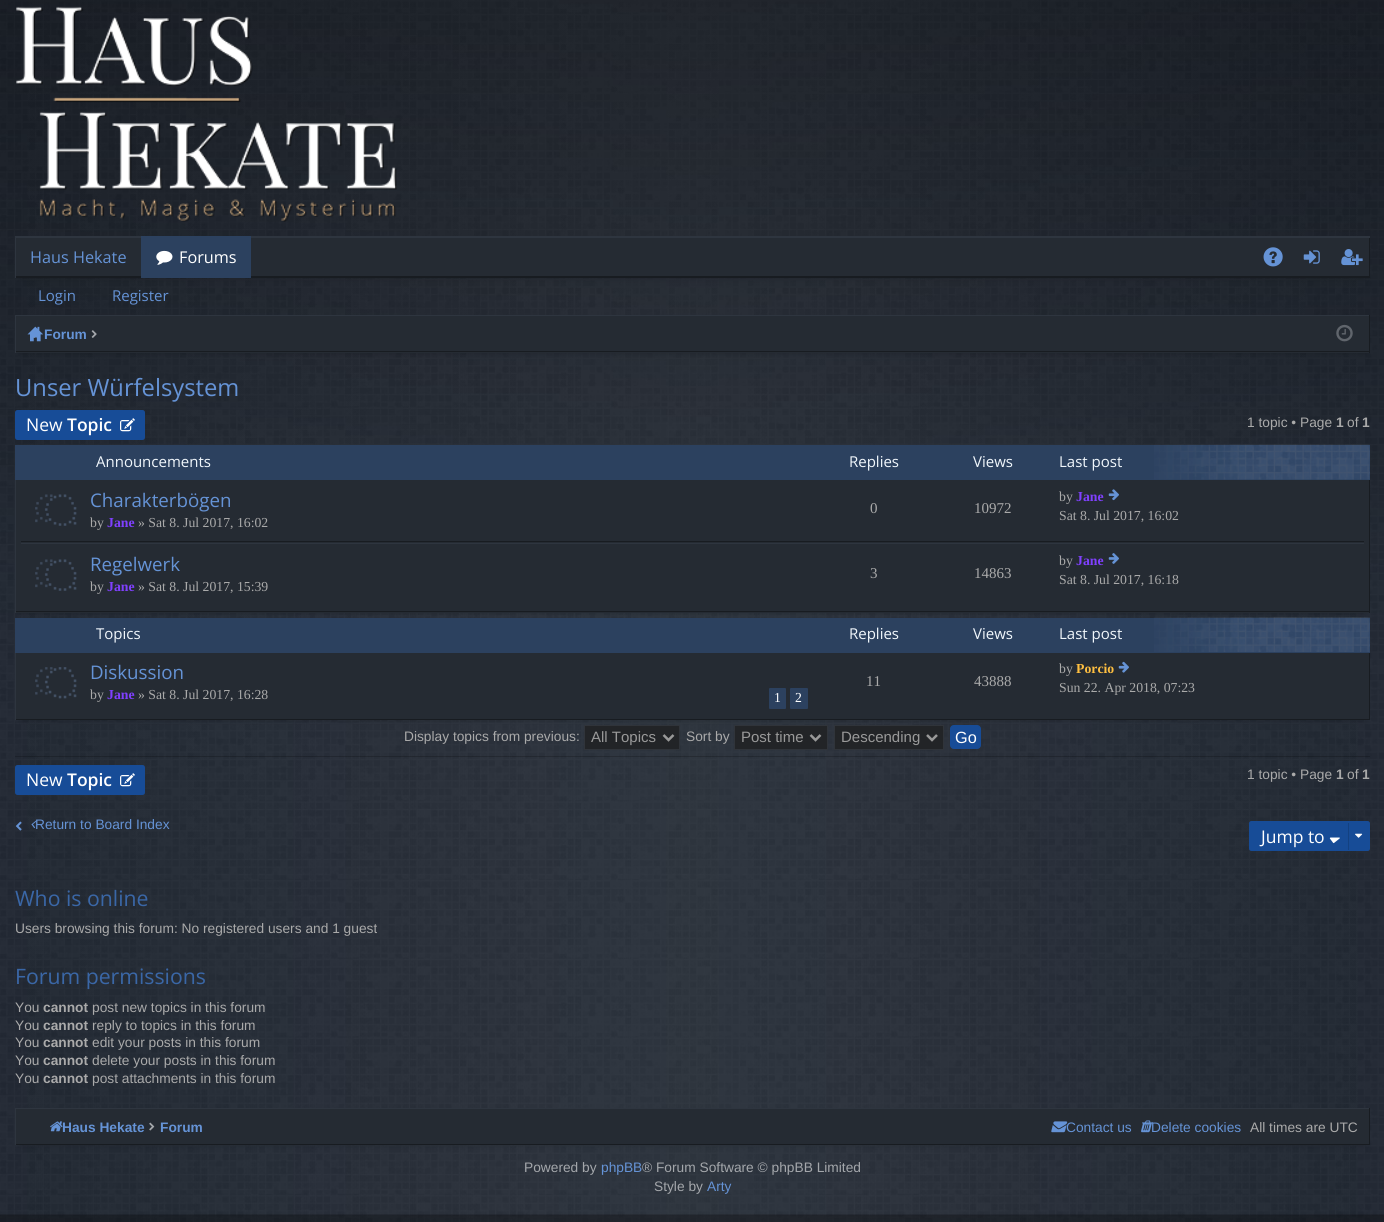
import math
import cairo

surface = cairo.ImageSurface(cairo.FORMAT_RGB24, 1384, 1222)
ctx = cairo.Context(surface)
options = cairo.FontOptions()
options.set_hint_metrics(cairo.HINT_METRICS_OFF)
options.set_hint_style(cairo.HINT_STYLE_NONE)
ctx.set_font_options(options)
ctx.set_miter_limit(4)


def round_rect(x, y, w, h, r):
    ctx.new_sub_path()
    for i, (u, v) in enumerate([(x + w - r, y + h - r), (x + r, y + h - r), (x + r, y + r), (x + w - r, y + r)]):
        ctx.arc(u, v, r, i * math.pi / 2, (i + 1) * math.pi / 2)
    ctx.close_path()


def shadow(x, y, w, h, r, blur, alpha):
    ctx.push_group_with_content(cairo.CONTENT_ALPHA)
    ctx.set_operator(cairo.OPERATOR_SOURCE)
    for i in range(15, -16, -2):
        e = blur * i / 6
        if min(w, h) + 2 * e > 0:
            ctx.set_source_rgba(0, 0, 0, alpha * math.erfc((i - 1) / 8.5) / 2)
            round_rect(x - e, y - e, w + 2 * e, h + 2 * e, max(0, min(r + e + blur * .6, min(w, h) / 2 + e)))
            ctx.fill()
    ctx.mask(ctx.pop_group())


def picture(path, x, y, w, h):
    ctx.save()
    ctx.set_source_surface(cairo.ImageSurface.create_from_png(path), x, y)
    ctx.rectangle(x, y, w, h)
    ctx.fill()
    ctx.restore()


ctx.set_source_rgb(0.11, 0.137, 0.18)
ctx.paint()
picture("img1.png", 0, 0, 1384, 1222)
picture("img2.png", 16, 6, 381, 216)
ctx.set_source_rgb(0, 0, 0)
shadow(21, 249, 1343, 29, 0, 3, 0.2)
ctx.set_source_rgb(0.145, 0.169, 0.2)
ctx.rectangle(16, 238, 1353, 38)
ctx.fill()
ctx.save()
ctx.rectangle(15, 236, 1355, 42)
ctx.clip()
ctx.set_source_rgb(0.094, 0.11, 0.129)
ctx.set_fill_rule(cairo.FILL_RULE_EVEN_ODD)
ctx.new_path()
ctx.move_to(-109, 112)
ctx.line_to(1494, 112)
ctx.line_to(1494, 401)
ctx.line_to(-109, 401)
ctx.close_path()
ctx.move_to(14, 235)
ctx.line_to(1369, 235)
ctx.line_to(1369, 276)
ctx.line_to(14, 276)
ctx.close_path()
ctx.fill()
ctx.set_source_rgb(0.18, 0.208, 0.247)
ctx.new_path()
ctx.move_to(-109, 112)
ctx.line_to(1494, 112)
ctx.line_to(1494, 401)
ctx.line_to(-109, 401)
ctx.close_path()
ctx.move_to(16, 238)
ctx.line_to(1371, 238)
ctx.line_to(1371, 279)
ctx.line_to(16, 279)
ctx.close_path()
ctx.fill()
ctx.restore()
ctx.select_font_face("Open Sans")
ctx.set_font_size(16.25)
ctx.set_source_rgb(0.396, 0.576, 0.839)
ctx.move_to(30, 263)
ctx.show_text("Haus Hekate")
ctx.set_source_rgb(0.173, 0.255, 0.373)
ctx.rectangle(141, 236, 110, 42)
ctx.fill()
picture("img3.png", 156, 250, 17, 15)
ctx.set_source_rgb(1, 1, 1)
ctx.move_to(179, 263)
ctx.show_text("Forums")
picture("img4.png", 1263, 247, 20, 20)
picture("img5.png", 1303, 250, 17, 14)
picture("img6.png", 1341, 249, 22, 17)
ctx.set_font_size(15)
ctx.set_source_rgb(0.396, 0.576, 0.839)
ctx.move_to(38, 301)
ctx.show_text("Login")
ctx.move_to(112, 301)
ctx.show_text("Register")
ctx.set_source_rgb(0, 0, 0)
shadow(21, 328, 1343, 25, 0, 3, 0.2)
ctx.set_source_rgb(0.145, 0.169, 0.2)
ctx.rectangle(16, 316, 1353, 37)
ctx.fill()
ctx.set_source_rgb(0.18, 0.208, 0.247)
ctx.rectangle(15, 315, 1355, 1)
ctx.fill()
ctx.set_source_rgb(0.094, 0.11, 0.129)
ctx.rectangle(1369, 315, 1, 38)
ctx.fill()
ctx.rectangle(15, 351, 1355, 1)
ctx.fill()
ctx.set_source_rgb(0.18, 0.208, 0.247)
ctx.rectangle(15, 315, 1, 38)
ctx.fill()
picture("img8.png", 33, 337, 2, 1)
picture("img7.png", 27, 326, 16, 16)
ctx.select_font_face("Liberation Sans", cairo.FONT_SLANT_NORMAL, cairo.FONT_WEIGHT_BOLD)
ctx.set_font_size(13.75)
ctx.set_source_rgb(0.396, 0.576, 0.839)
ctx.move_to(44, 339)
ctx.show_text("Forum")
picture("img9.png", 91, 330, 6, 8)
picture("img10.png", 1336, 324, 17, 18)
ctx.select_font_face("Open Sans")
ctx.set_font_size(23.75)
ctx.move_to(15, 396)
ctx.show_text("Unser Würfelsystem")
ctx.set_source_rgb(0.09, 0.298, 0.592)
round_rect(15, 410, 130, 30, 2.5)
ctx.fill()
ctx.set_font_size(17.5)
ctx.set_source_rgb(1, 1, 1)
ctx.move_to(26, 431)
ctx.show_text("New")
ctx.select_font_face("Open Sans SemiBold")
ctx.move_to(67, 431)
ctx.show_text("Topic")
picture("img11.png", 120, 418, 15, 14)
ctx.select_font_face("Liberation Sans")
ctx.set_font_size(13.75)
ctx.set_source_rgb(0.667, 0.667, 0.667)
ctx.move_to(1247, 427)
ctx.show_text("1 topic • Page")
ctx.select_font_face("Liberation Sans", cairo.FONT_SLANT_NORMAL, cairo.FONT_WEIGHT_BOLD)
ctx.move_to(1336, 427)
ctx.show_text("1")
ctx.select_font_face("Liberation Sans")
ctx.move_to(1347, 427)
ctx.show_text("of")
ctx.select_font_face("Liberation Sans", cairo.FONT_SLANT_NORMAL, cairo.FONT_WEIGHT_BOLD)
ctx.move_to(1362, 427)
ctx.show_text("1")
ctx.set_source_rgb(0, 0, 0)
shadow(21, 458, 1343, 155, 0, 3, 0.2)
ctx.set_source_rgb(0.145, 0.169, 0.2)
ctx.rectangle(16, 480, 1353, 133)
ctx.fill()
ctx.set_source_rgb(0.094, 0.11, 0.129)
ctx.rectangle(1369, 480, 1, 133)
ctx.fill()
ctx.rectangle(15, 611, 1355, 1)
ctx.fill()
ctx.set_source_rgb(0.18, 0.208, 0.247)
ctx.rectangle(15, 480, 1, 133)
ctx.fill()
ctx.set_source_rgb(0.173, 0.255, 0.373)
ctx.rectangle(15, 445, 1355, 35)
ctx.fill()
picture("img12.png", 1154, 444, 216, 36)
ctx.select_font_face("Open Sans")
ctx.set_font_size(15)
ctx.set_source_rgb(0.945, 0.965, 0.988)
ctx.move_to(96, 467)
ctx.show_text("Announcements")
ctx.move_to(849, 467)
ctx.show_text("Replies")
ctx.move_to(973, 467)
ctx.show_text("Views")
ctx.move_to(1059, 467)
ctx.show_text("Last post")
ctx.set_source_rgb(0.094, 0.11, 0.129)
ctx.rectangle(21, 541, 1343, 1)
ctx.fill()
picture("img13.png", 35, 494, 42, 32)
ctx.set_font_size(18.75)
ctx.set_source_rgb(0.396, 0.576, 0.839)
ctx.move_to(90, 507)
ctx.show_text("Charakterbögen")
ctx.select_font_face("Liberation Serif")
ctx.set_font_size(13.75)
ctx.set_source_rgb(0.667, 0.667, 0.667)
ctx.move_to(90, 527)
ctx.show_text("by")
ctx.select_font_face("Liberation Serif", cairo.FONT_SLANT_NORMAL, cairo.FONT_WEIGHT_BOLD)
ctx.set_source_rgb(0.502, 0.251, 1)
ctx.move_to(107, 527)
ctx.show_text("Jane")
ctx.select_font_face("Liberation Serif")
ctx.set_source_rgb(0.667, 0.667, 0.667)
ctx.move_to(138, 527)
ctx.show_text("» Sat 8. Jul 2017, 16:02")
ctx.set_font_size(15)
ctx.move_to(870, 513)
ctx.show_text("0")
ctx.move_to(974, 513)
ctx.show_text("10972")
ctx.set_font_size(13.75)
ctx.move_to(1059, 501)
ctx.show_text("by")
ctx.select_font_face("Liberation Serif", cairo.FONT_SLANT_NORMAL, cairo.FONT_WEIGHT_BOLD)
ctx.set_source_rgb(0.502, 0.251, 1)
ctx.move_to(1076, 501)
ctx.show_text("Jane")
picture("img14.png", 1108, 489, 11, 12)
ctx.select_font_face("Liberation Serif")
ctx.set_source_rgb(0.667, 0.667, 0.667)
ctx.move_to(1059, 520)
ctx.show_text("Sat 8. Jul 2017, 16:02")
ctx.set_source_rgb(0.18, 0.208, 0.247)
ctx.rectangle(21, 543, 1343, 1)
ctx.fill()
picture("img15.png", 35, 559, 42, 32)
ctx.select_font_face("Open Sans")
ctx.set_font_size(18.75)
ctx.set_source_rgb(0.396, 0.576, 0.839)
ctx.move_to(90, 571)
ctx.show_text("Regelwerk")
ctx.select_font_face("Liberation Serif")
ctx.set_font_size(13.75)
ctx.set_source_rgb(0.667, 0.667, 0.667)
ctx.move_to(90, 591)
ctx.show_text("by")
ctx.select_font_face("Liberation Serif", cairo.FONT_SLANT_NORMAL, cairo.FONT_WEIGHT_BOLD)
ctx.set_source_rgb(0.502, 0.251, 1)
ctx.move_to(107, 591)
ctx.show_text("Jane")
ctx.select_font_face("Liberation Serif")
ctx.set_source_rgb(0.667, 0.667, 0.667)
ctx.move_to(138, 591)
ctx.show_text("» Sat 8. Jul 2017, 15:39")
ctx.set_font_size(15)
ctx.move_to(870, 578)
ctx.show_text("3")
ctx.move_to(974, 578)
ctx.show_text("14863")
ctx.set_font_size(13.75)
ctx.move_to(1059, 565)
ctx.show_text("by")
ctx.select_font_face("Liberation Serif", cairo.FONT_SLANT_NORMAL, cairo.FONT_WEIGHT_BOLD)
ctx.set_source_rgb(0.502, 0.251, 1)
ctx.move_to(1076, 565)
ctx.show_text("Jane")
picture("img16.png", 1108, 553, 11, 11)
ctx.select_font_face("Liberation Serif")
ctx.set_source_rgb(0.667, 0.667, 0.667)
ctx.move_to(1059, 584)
ctx.show_text("Sat 8. Jul 2017, 16:18")
ctx.set_source_rgb(0, 0, 0)
shadow(21, 630, 1343, 90, 0, 3, 0.2)
ctx.set_source_rgb(0.145, 0.169, 0.2)
ctx.rectangle(16, 653, 1353, 66)
ctx.fill()
ctx.set_source_rgb(0.094, 0.11, 0.129)
ctx.rectangle(1369, 653, 1, 67)
ctx.fill()
ctx.rectangle(15, 719, 1355, 1)
ctx.fill()
ctx.set_source_rgb(0.18, 0.208, 0.247)
ctx.rectangle(15, 653, 1, 67)
ctx.fill()
ctx.set_source_rgb(0.173, 0.255, 0.373)
ctx.rectangle(15, 618, 1355, 35)
ctx.fill()
picture("img17.png", 1154, 617, 216, 35)
ctx.select_font_face("Open Sans")
ctx.set_font_size(15)
ctx.set_source_rgb(0.945, 0.965, 0.988)
ctx.move_to(96, 639)
ctx.show_text("Topics")
ctx.move_to(849, 639)
ctx.show_text("Replies")
ctx.move_to(973, 639)
ctx.show_text("Views")
ctx.move_to(1059, 639)
ctx.show_text("Last post")
picture("img18.png", 35, 667, 42, 32)
ctx.set_font_size(18.75)
ctx.set_source_rgb(0.396, 0.576, 0.839)
ctx.move_to(90, 679)
ctx.show_text("Diskussion")
ctx.select_font_face("Liberation Serif")
ctx.set_font_size(13.75)
ctx.set_source_rgb(0.667, 0.667, 0.667)
ctx.move_to(90, 699)
ctx.show_text("by")
ctx.select_font_face("Liberation Serif", cairo.FONT_SLANT_NORMAL, cairo.FONT_WEIGHT_BOLD)
ctx.set_source_rgb(0.502, 0.251, 1)
ctx.move_to(107, 699)
ctx.show_text("Jane")
ctx.select_font_face("Liberation Serif")
ctx.set_source_rgb(0.667, 0.667, 0.667)
ctx.move_to(138, 699)
ctx.show_text("» Sat 8. Jul 2017, 16:28")
ctx.set_source_rgb(0.173, 0.255, 0.373)
round_rect(769.5, 688.5, 16, 20, 0.5)
ctx.fill_preserve()
ctx.set_line_width(1)
ctx.stroke()
ctx.set_source_rgb(1, 1, 1)
ctx.move_to(774, 702)
ctx.show_text("1")
ctx.set_source_rgb(0.173, 0.255, 0.373)
round_rect(790.5, 688.5, 17, 20, 0.5)
ctx.fill_preserve()
ctx.stroke()
ctx.set_source_rgb(1, 1, 1)
ctx.move_to(795, 702)
ctx.show_text("2")
ctx.set_font_size(15)
ctx.set_source_rgb(0.667, 0.667, 0.667)
ctx.move_to(866, 686)
ctx.show_text("11")
ctx.move_to(974, 686)
ctx.show_text("43888")
ctx.set_font_size(13.75)
ctx.move_to(1059, 673)
ctx.show_text("by")
ctx.select_font_face("Liberation Serif", cairo.FONT_SLANT_NORMAL, cairo.FONT_WEIGHT_BOLD)
ctx.set_source_rgb(1, 0.749, 0.251)
ctx.move_to(1076, 673)
ctx.show_text("Porcio")
picture("img19.png", 1118, 661, 11, 12)
ctx.select_font_face("Liberation Serif")
ctx.set_source_rgb(0.667, 0.667, 0.667)
ctx.move_to(1059, 692)
ctx.show_text("Sun 22. Apr 2018, 07:23")
ctx.select_font_face("Liberation Sans")
ctx.move_to(404, 741)
ctx.show_text("Display topics from previous:")
ctx.set_source_rgb(0.133, 0.141, 0.153)
ctx.rectangle(584.5, 725.5, 95, 24)
ctx.fill_preserve()
ctx.set_source_rgb(0.188, 0.204, 0.227)
ctx.stroke()
ctx.new_path()
ctx.move_to(663.5, 735)
ctx.line_to(668.5, 740)
ctx.line_to(673.5, 735)
ctx.set_source_rgb(0.6, 0.6, 0.6)
ctx.set_line_width(2.5)
ctx.stroke()
ctx.set_font_size(15)
ctx.move_to(591, 742)
ctx.show_text("All Topics")
ctx.set_font_size(13.75)
ctx.set_source_rgb(0.667, 0.667, 0.667)
ctx.move_to(686, 741)
ctx.show_text("Sort by")
ctx.set_source_rgb(0.133, 0.141, 0.153)
ctx.rectangle(734.5, 725.5, 93, 24)
ctx.fill_preserve()
ctx.set_source_rgb(0.188, 0.204, 0.227)
ctx.set_line_width(1)
ctx.stroke()
ctx.new_path()
ctx.move_to(810.5, 735)
ctx.line_to(815.5, 740)
ctx.line_to(820.5, 735)
ctx.set_source_rgb(0.6, 0.6, 0.6)
ctx.set_line_width(2.5)
ctx.stroke()
ctx.set_font_size(15)
ctx.move_to(741, 742)
ctx.show_text("Post time")
ctx.set_source_rgb(0.133, 0.141, 0.153)
ctx.rectangle(834.5, 725.5, 109, 24)
ctx.fill_preserve()
ctx.set_source_rgb(0.188, 0.204, 0.227)
ctx.set_line_width(1)
ctx.stroke()
ctx.new_path()
ctx.move_to(927, 735)
ctx.line_to(932, 740)
ctx.line_to(937, 735)
ctx.set_source_rgb(0.6, 0.6, 0.6)
ctx.set_line_width(2.5)
ctx.stroke()
ctx.move_to(841, 742)
ctx.show_text("Descending")
ctx.set_source_rgb(0.09, 0.298, 0.592)
round_rect(950.5, 725.5, 30, 23, 3.5)
ctx.fill_preserve()
ctx.set_line_width(1)
ctx.stroke()
ctx.set_font_size(16.25)
ctx.set_source_rgb(1, 1, 1)
ctx.move_to(955, 743)
ctx.show_text("Go")
ctx.set_source_rgba(0, 0, 0, 0.2)
ctx.rectangle(15, 756, 1355, 1)
ctx.fill()
ctx.set_source_rgb(0.09, 0.298, 0.592)
round_rect(15, 765, 130, 30, 2.5)
ctx.fill()
ctx.select_font_face("Open Sans")
ctx.set_font_size(17.5)
ctx.set_source_rgb(1, 1, 1)
ctx.move_to(26, 786)
ctx.show_text("New")
ctx.select_font_face("Open Sans SemiBold")
ctx.move_to(67, 786)
ctx.show_text("Topic")
picture("img11.png", 120, 773, 15, 14)
ctx.select_font_face("Liberation Sans")
ctx.set_font_size(13.75)
ctx.set_source_rgb(0.667, 0.667, 0.667)
ctx.move_to(1247, 779)
ctx.show_text("1 topic • Page")
ctx.select_font_face("Liberation Sans", cairo.FONT_SLANT_NORMAL, cairo.FONT_WEIGHT_BOLD)
ctx.move_to(1336, 779)
ctx.show_text("1")
ctx.select_font_face("Liberation Sans")
ctx.move_to(1347, 779)
ctx.show_text("of")
ctx.select_font_face("Liberation Sans", cairo.FONT_SLANT_NORMAL, cairo.FONT_WEIGHT_BOLD)
ctx.move_to(1362, 779)
ctx.show_text("1")
picture("img20.png", 15, 821, 7, 10)
picture("img21.png", 31, 820, 6, 9)
ctx.select_font_face("Liberation Sans")
ctx.set_source_rgb(0.396, 0.576, 0.839)
ctx.move_to(35, 829)
ctx.show_text("Return to Board Index")
ctx.set_source_rgb(0.09, 0.298, 0.592)
round_rect(1249.5, 821.5, 120, 29, 2)
ctx.fill_preserve()
ctx.stroke()
ctx.select_font_face("Open Sans")
ctx.set_font_size(17.5)
ctx.set_source_rgb(1, 1, 1)
ctx.move_to(1261, 843)
ctx.show_text("Jump to")
picture("img22.png", 1329, 837, 11, 7)
ctx.set_source_rgb(0.078, 0.255, 0.506)
ctx.rectangle(1348, 823, 1, 27)
ctx.fill()
picture("img23.png", 1355, 833, 8, 5)
ctx.set_font_size(21.25)
ctx.set_source_rgb(0.227, 0.404, 0.655)
ctx.move_to(15, 906)
ctx.show_text("Who is online")
ctx.select_font_face("Liberation Sans")
ctx.set_font_size(13.75)
ctx.set_source_rgb(0.667, 0.667, 0.667)
ctx.move_to(15, 933)
ctx.show_text("Users browsing this forum: No registered users and 1 guest")
ctx.select_font_face("Open Sans")
ctx.set_font_size(21.25)
ctx.set_source_rgb(0.227, 0.404, 0.655)
ctx.move_to(15, 984)
ctx.show_text("Forum permissions")
ctx.select_font_face("Liberation Sans")
ctx.set_font_size(13.75)
ctx.set_source_rgb(0.667, 0.667, 0.667)
ctx.move_to(15, 1012)
ctx.show_text("You")
ctx.select_font_face("Liberation Sans", cairo.FONT_SLANT_NORMAL, cairo.FONT_WEIGHT_BOLD)
ctx.move_to(43, 1012)
ctx.show_text("cannot")
ctx.select_font_face("Liberation Sans")
ctx.move_to(92, 1012)
ctx.show_text("post new topics in this forum")
ctx.move_to(15, 1030)
ctx.show_text("You")
ctx.select_font_face("Liberation Sans", cairo.FONT_SLANT_NORMAL, cairo.FONT_WEIGHT_BOLD)
ctx.move_to(43, 1030)
ctx.show_text("cannot")
ctx.select_font_face("Liberation Sans")
ctx.move_to(92, 1030)
ctx.show_text("reply to topics in this forum")
ctx.move_to(15, 1047)
ctx.show_text("You")
ctx.select_font_face("Liberation Sans", cairo.FONT_SLANT_NORMAL, cairo.FONT_WEIGHT_BOLD)
ctx.move_to(43, 1047)
ctx.show_text("cannot")
ctx.select_font_face("Liberation Sans")
ctx.move_to(92, 1047)
ctx.show_text("edit your posts in this forum")
ctx.move_to(15, 1065)
ctx.show_text("You")
ctx.select_font_face("Liberation Sans", cairo.FONT_SLANT_NORMAL, cairo.FONT_WEIGHT_BOLD)
ctx.move_to(43, 1065)
ctx.show_text("cannot")
ctx.select_font_face("Liberation Sans")
ctx.move_to(92, 1065)
ctx.show_text("delete your posts in this forum")
ctx.move_to(15, 1083)
ctx.show_text("You")
ctx.select_font_face("Liberation Sans", cairo.FONT_SLANT_NORMAL, cairo.FONT_WEIGHT_BOLD)
ctx.move_to(43, 1083)
ctx.show_text("cannot")
ctx.select_font_face("Liberation Sans")
ctx.move_to(92, 1083)
ctx.show_text("post attachments in this forum")
ctx.set_source_rgb(0, 0, 0)
shadow(21, 1120, 1343, 25, 0, 3, 0.2)
ctx.set_source_rgb(0.145, 0.169, 0.2)
ctx.rectangle(16, 1109, 1353, 35)
ctx.fill()
ctx.set_source_rgb(0.18, 0.208, 0.247)
ctx.rectangle(15, 1108, 1355, 1)
ctx.fill()
ctx.set_source_rgb(0.094, 0.11, 0.129)
ctx.rectangle(1369, 1108, 1, 37)
ctx.fill()
ctx.rectangle(15, 1144, 1355, 1)
ctx.fill()
ctx.set_source_rgb(0.18, 0.208, 0.247)
ctx.rectangle(15, 1108, 1, 37)
ctx.fill()
picture("img24.png", 50, 1121, 13, 11)
ctx.select_font_face("Liberation Sans", cairo.FONT_SLANT_NORMAL, cairo.FONT_WEIGHT_BOLD)
ctx.set_source_rgb(0.396, 0.576, 0.839)
ctx.move_to(62, 1132)
ctx.show_text("Haus Hekate")
picture("img25.png", 149, 1122, 6, 9)
ctx.move_to(160, 1132)
ctx.show_text("Forum")
picture("img26.png", 1051, 1121, 17, 12)
ctx.select_font_face("Liberation Sans")
ctx.move_to(1066, 1132)
ctx.show_text("Contact us")
picture("img27.png", 1141, 1120, 12, 13)
ctx.move_to(1151, 1132)
ctx.show_text("Delete cookies")
ctx.set_source_rgb(0.667, 0.667, 0.667)
ctx.move_to(1250, 1132)
ctx.show_text("All times are UTC")
ctx.set_source_rgb(0.643, 0.655, 0.671)
ctx.move_to(524, 1172)
ctx.show_text("Powered by")
ctx.set_source_rgb(0.396, 0.576, 0.839)
ctx.move_to(601, 1172)
ctx.show_text("phpBB")
ctx.set_source_rgb(0.643, 0.655, 0.671)
ctx.move_to(642, 1172)
ctx.show_text("® Forum Software © phpBB Limited")
ctx.move_to(654, 1191)
ctx.show_text("Style by")
ctx.set_source_rgb(0.396, 0.576, 0.839)
ctx.move_to(707, 1191)
ctx.show_text("Arty")
surface.write_to_png("page.png")
